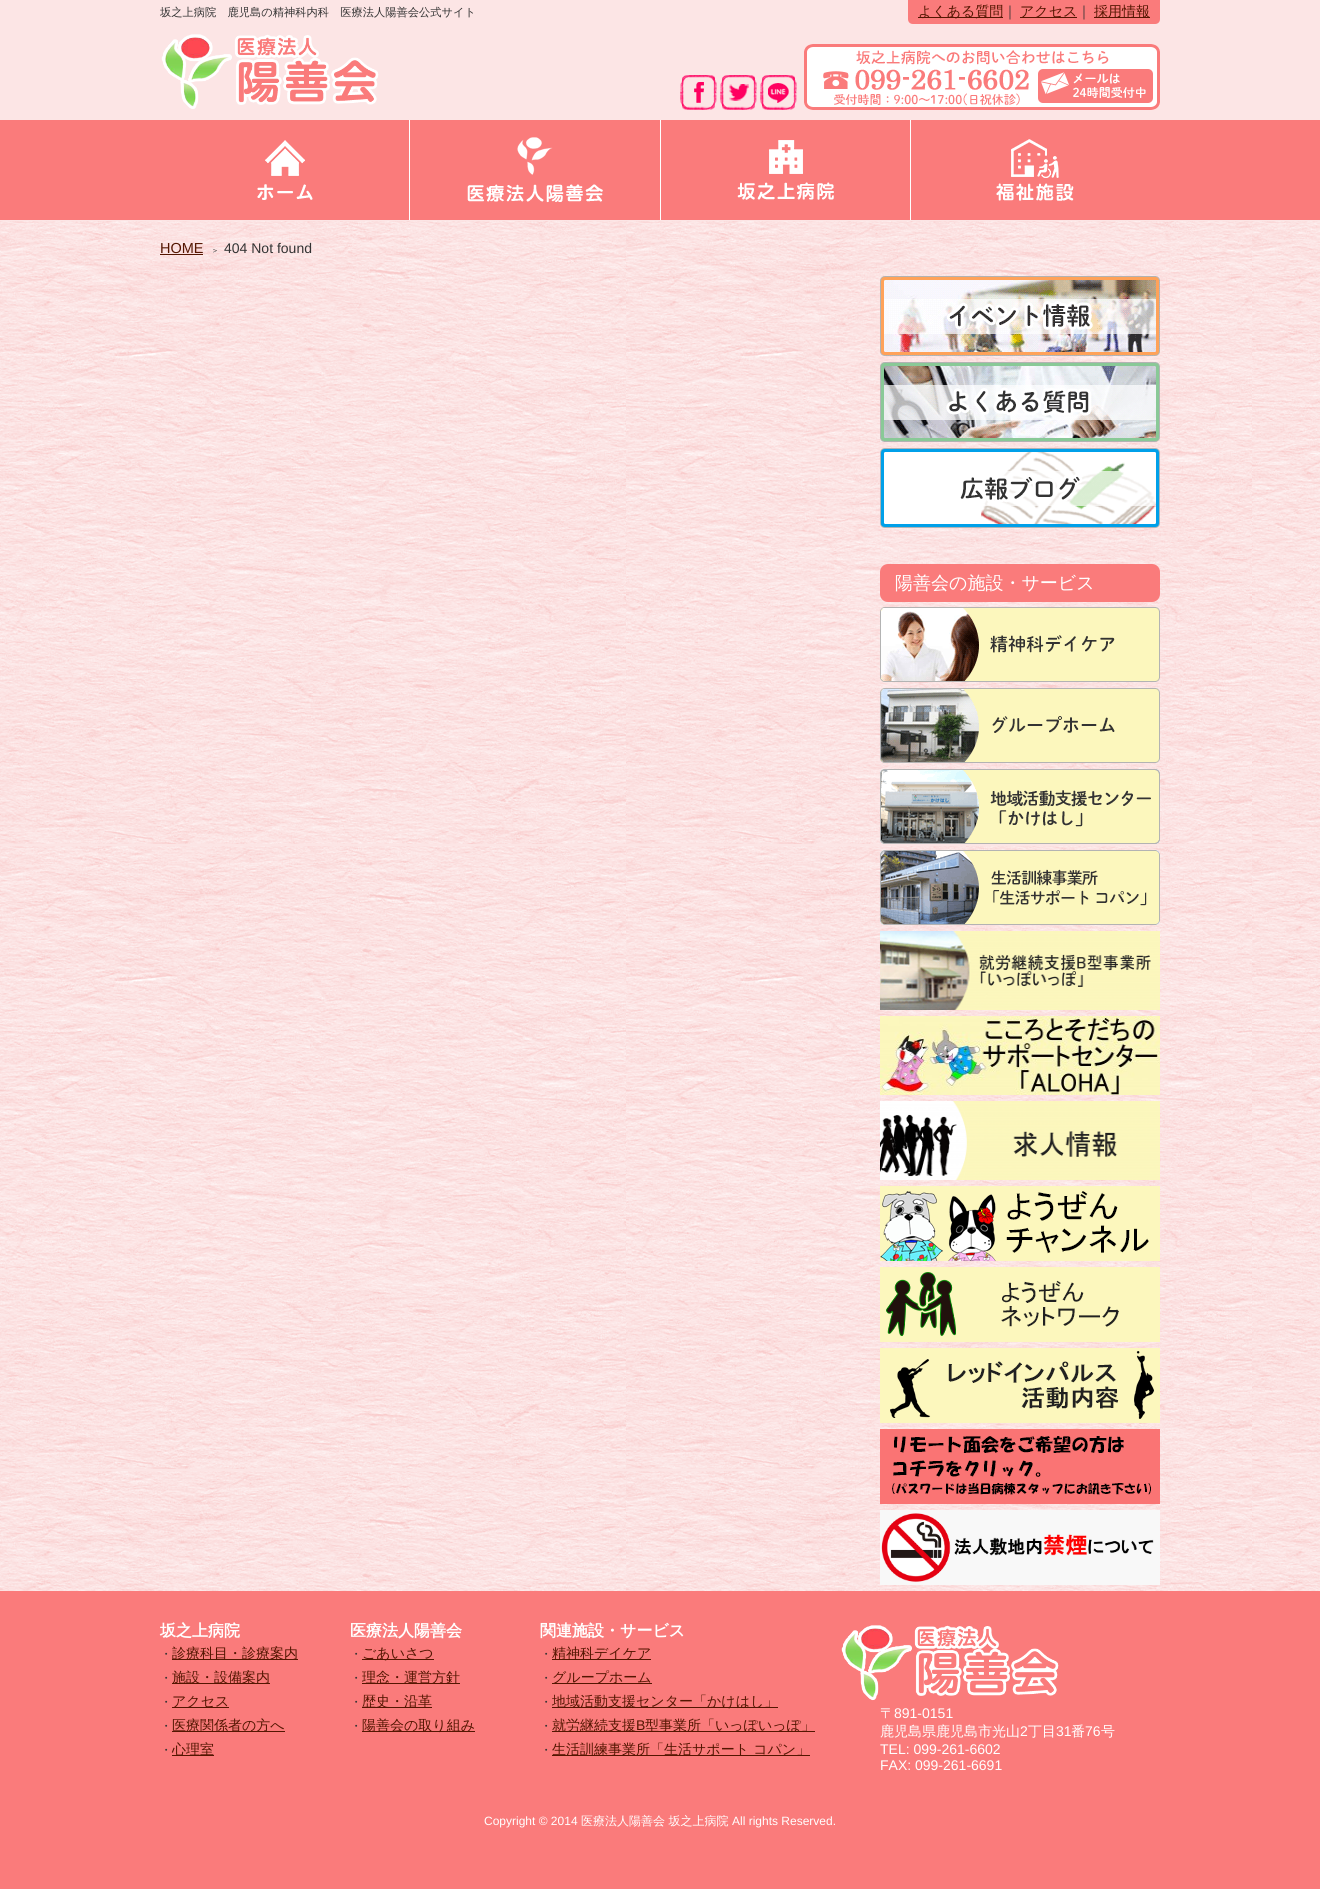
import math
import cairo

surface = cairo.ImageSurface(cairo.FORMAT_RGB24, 1320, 1889)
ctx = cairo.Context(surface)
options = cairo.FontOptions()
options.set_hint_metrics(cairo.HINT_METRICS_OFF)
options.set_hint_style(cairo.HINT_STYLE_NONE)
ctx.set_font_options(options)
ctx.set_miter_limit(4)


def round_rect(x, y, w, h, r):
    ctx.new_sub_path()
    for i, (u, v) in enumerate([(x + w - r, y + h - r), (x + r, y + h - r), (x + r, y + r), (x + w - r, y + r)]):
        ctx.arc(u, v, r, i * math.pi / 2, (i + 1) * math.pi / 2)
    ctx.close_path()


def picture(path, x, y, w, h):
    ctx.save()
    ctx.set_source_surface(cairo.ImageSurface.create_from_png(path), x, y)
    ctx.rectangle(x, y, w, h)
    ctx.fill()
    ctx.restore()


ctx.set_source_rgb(0.98, 0.482, 0.482)
ctx.paint()
ctx.set_source_rgb(0.988, 0.898, 0.898)
ctx.rectangle(0, 0, 1320, 120)
ctx.fill()
ctx.select_font_face("WenQuanYi Zen Hei Medium")
ctx.set_font_size(11.25)
ctx.set_source_rgb(0.2, 0.2, 0.2)
ctx.move_to(160, 16)
ctx.show_text("坂之上病院　鹿児島の精神科内科　医療法人陽善会公式サイト")
ctx.set_source_rgb(0.98, 0.482, 0.482)
ctx.new_path()
ctx.move_to(908, 0)
ctx.line_to(1160, 0)
ctx.line_to(1160, 19)
ctx.curve_to(1160, 22, 1158, 24, 1155, 24)
ctx.line_to(913, 24)
ctx.curve_to(910, 24, 908, 22, 908, 19)
ctx.close_path()
ctx.fill()
ctx.set_source_rgb(0.329, 0.086, 0.004)
ctx.rectangle(918, 17, 85, 1)
ctx.fill()
ctx.set_font_size(14)
ctx.move_to(918, 16)
ctx.show_text("よくある質問")
ctx.set_source_rgb(0.2, 0.2, 0.2)
ctx.move_to(1003, 16)
ctx.show_text("｜")
ctx.set_source_rgb(0.329, 0.086, 0.004)
ctx.rectangle(1020, 17, 57, 1)
ctx.fill()
ctx.move_to(1020, 16)
ctx.show_text("アクセス")
ctx.set_source_rgb(0.2, 0.2, 0.2)
ctx.move_to(1077, 16)
ctx.show_text("｜")
ctx.set_source_rgb(0.329, 0.086, 0.004)
ctx.rectangle(1094, 17, 56, 1)
ctx.fill()
ctx.move_to(1094, 16)
ctx.show_text("採用情報")
picture("img1.png", 161, 34, 218, 75)
picture("img2.png", 680, 75, 37, 35)
picture("img3.png", 720, 75, 37, 35)
picture("img4.png", 760, 75, 37, 35)
picture("img5.png", 804, 44, 356, 66)
picture("img6.png", 1038, 69, 115, 34)
ctx.set_source_rgb(1, 1, 1)
ctx.rectangle(409, 120, 1, 100)
ctx.fill()
picture("img7.png", 257, 140, 56, 60)
ctx.rectangle(660, 120, 1, 100)
ctx.fill()
picture("img8.png", 467, 137, 136, 66)
ctx.rectangle(910, 120, 1, 100)
ctx.fill()
picture("img9.png", 737, 140, 97, 60)
picture("img10.png", 996, 139, 78, 62)
picture("img11.png", 0, 220, 1320, 1371)
ctx.select_font_face("Liberation Sans")
ctx.set_font_size(14.5)
ctx.set_source_rgb(0.329, 0.086, 0.004)
ctx.move_to(160, 253)
ctx.show_text("HOME")
ctx.rectangle(160, 254, 43, 1)
ctx.fill()
ctx.select_font_face("WenQuanYi Zen Hei Medium")
ctx.set_font_size(8)
ctx.set_source_rgb(0.2, 0.2, 0.2)
ctx.move_to(211, 253)
ctx.show_text("＞")
ctx.select_font_face("Liberation Sans")
ctx.set_font_size(14)
ctx.move_to(224, 253)
ctx.show_text("404 Not found")
picture("img12.png", 880, 276, 280, 80)
picture("img13.png", 880, 362, 280, 80)
picture("img14.png", 880, 448, 280, 80)
ctx.set_source_rgb(0.98, 0.482, 0.482)
round_rect(880, 564, 280, 38, 8)
ctx.fill()
ctx.select_font_face("WenQuanYi Zen Hei Medium")
ctx.set_font_size(18)
ctx.set_source_rgb(1, 1, 1)
ctx.move_to(895, 589)
ctx.show_text("陽善会の施設・サービス")
picture("img15.png", 880, 607, 280, 75)
picture("img16.png", 880, 688, 280, 75)
picture("img17.png", 880, 769, 280, 75)
picture("img18.png", 880, 850, 280, 75)
picture("img19.png", 880, 931, 280, 79)
picture("img20.png", 880, 1016, 280, 79)
picture("img21.png", 880, 1101, 280, 79)
picture("img22.png", 880, 1186, 280, 75)
picture("img23.png", 880, 1267, 280, 75)
picture("img24.png", 880, 1348, 280, 75)
picture("img25.png", 880, 1429, 280, 75)
picture("img26.png", 880, 1510, 280, 75)
ctx.select_font_face("WenQuanYi Zen Hei", cairo.FONT_SLANT_NORMAL, cairo.FONT_WEIGHT_BOLD)
ctx.set_font_size(16)
ctx.move_to(160, 1636)
ctx.show_text("坂之上病院")
ctx.select_font_face("WenQuanYi Zen Hei Medium")
ctx.set_font_size(12)
ctx.set_source_rgb(0.2, 0.2, 0.2)
ctx.move_to(160, 1658)
ctx.show_text("・")
ctx.set_source_rgb(0.329, 0.086, 0.004)
ctx.rectangle(172, 1659, 126, 1)
ctx.fill()
ctx.set_font_size(14)
ctx.move_to(172, 1658)
ctx.show_text("診療科目・診療案内")
ctx.set_font_size(12)
ctx.set_source_rgb(0.2, 0.2, 0.2)
ctx.move_to(160, 1682)
ctx.show_text("・")
ctx.set_source_rgb(0.329, 0.086, 0.004)
ctx.rectangle(172, 1683, 98, 1)
ctx.fill()
ctx.set_font_size(14)
ctx.move_to(172, 1682)
ctx.show_text("施設・設備案内")
ctx.set_font_size(12)
ctx.set_source_rgb(0.2, 0.2, 0.2)
ctx.move_to(160, 1706)
ctx.show_text("・")
ctx.set_source_rgb(0.329, 0.086, 0.004)
ctx.rectangle(172, 1707, 57, 1)
ctx.fill()
ctx.set_font_size(14)
ctx.move_to(172, 1706)
ctx.show_text("アクセス")
ctx.set_font_size(12)
ctx.set_source_rgb(0.2, 0.2, 0.2)
ctx.move_to(160, 1730)
ctx.show_text("・")
ctx.set_source_rgb(0.329, 0.086, 0.004)
ctx.rectangle(172, 1731, 113, 1)
ctx.fill()
ctx.set_font_size(14)
ctx.move_to(172, 1730)
ctx.show_text("医療関係者の方へ")
ctx.set_font_size(12)
ctx.set_source_rgb(0.2, 0.2, 0.2)
ctx.move_to(160, 1754)
ctx.show_text("・")
ctx.set_source_rgb(0.329, 0.086, 0.004)
ctx.rectangle(172, 1755, 42, 1)
ctx.fill()
ctx.set_font_size(14)
ctx.move_to(172, 1754)
ctx.show_text("心理室")
ctx.select_font_face("WenQuanYi Zen Hei", cairo.FONT_SLANT_NORMAL, cairo.FONT_WEIGHT_BOLD)
ctx.set_font_size(16)
ctx.set_source_rgb(1, 1, 1)
ctx.move_to(350, 1636)
ctx.show_text("医療法人陽善会")
ctx.select_font_face("WenQuanYi Zen Hei Medium")
ctx.set_font_size(12)
ctx.set_source_rgb(0.2, 0.2, 0.2)
ctx.move_to(350, 1658)
ctx.show_text("・")
ctx.set_source_rgb(0.329, 0.086, 0.004)
ctx.rectangle(362, 1659, 72, 1)
ctx.fill()
ctx.set_font_size(14)
ctx.move_to(362, 1658)
ctx.show_text("ごあいさつ")
ctx.set_font_size(12)
ctx.set_source_rgb(0.2, 0.2, 0.2)
ctx.move_to(350, 1682)
ctx.show_text("・")
ctx.set_source_rgb(0.329, 0.086, 0.004)
ctx.rectangle(362, 1683, 98, 1)
ctx.fill()
ctx.set_font_size(14)
ctx.move_to(362, 1682)
ctx.show_text("理念・運営方針")
ctx.set_font_size(12)
ctx.set_source_rgb(0.2, 0.2, 0.2)
ctx.move_to(350, 1706)
ctx.show_text("・")
ctx.set_source_rgb(0.329, 0.086, 0.004)
ctx.rectangle(362, 1707, 70, 1)
ctx.fill()
ctx.set_font_size(14)
ctx.move_to(362, 1706)
ctx.show_text("歴史・沿革")
ctx.set_font_size(12)
ctx.set_source_rgb(0.2, 0.2, 0.2)
ctx.move_to(350, 1730)
ctx.show_text("・")
ctx.set_source_rgb(0.329, 0.086, 0.004)
ctx.rectangle(362, 1731, 113, 1)
ctx.fill()
ctx.set_font_size(14)
ctx.move_to(362, 1730)
ctx.show_text("陽善会の取り組み")
ctx.select_font_face("WenQuanYi Zen Hei", cairo.FONT_SLANT_NORMAL, cairo.FONT_WEIGHT_BOLD)
ctx.set_font_size(16)
ctx.set_source_rgb(1, 1, 1)
ctx.move_to(540, 1636)
ctx.show_text("関連施設・サービス")
ctx.select_font_face("WenQuanYi Zen Hei Medium")
ctx.set_font_size(12)
ctx.set_source_rgb(0.2, 0.2, 0.2)
ctx.move_to(540, 1658)
ctx.show_text("・")
ctx.set_source_rgb(0.329, 0.086, 0.004)
ctx.rectangle(552, 1659, 99, 1)
ctx.fill()
ctx.set_font_size(14)
ctx.move_to(552, 1658)
ctx.show_text("精神科デイケア")
ctx.set_font_size(12)
ctx.set_source_rgb(0.2, 0.2, 0.2)
ctx.move_to(540, 1682)
ctx.show_text("・")
ctx.set_source_rgb(0.329, 0.086, 0.004)
ctx.rectangle(552, 1683, 100, 1)
ctx.fill()
ctx.set_font_size(14)
ctx.move_to(552, 1682)
ctx.show_text("グループホーム")
ctx.set_font_size(12)
ctx.set_source_rgb(0.2, 0.2, 0.2)
ctx.move_to(540, 1706)
ctx.show_text("・")
ctx.set_source_rgb(0.329, 0.086, 0.004)
ctx.rectangle(552, 1707, 226, 1)
ctx.fill()
ctx.set_font_size(14)
ctx.move_to(552, 1706)
ctx.show_text("地域活動支援センター「かけはし」")
ctx.set_font_size(12)
ctx.set_source_rgb(0.2, 0.2, 0.2)
ctx.move_to(540, 1730)
ctx.show_text("・")
ctx.set_source_rgb(0.329, 0.086, 0.004)
ctx.rectangle(552, 1731, 263, 1)
ctx.fill()
ctx.set_font_size(14)
ctx.move_to(552, 1730)
ctx.show_text("就労継続支援")
ctx.select_font_face("Liberation Sans")
ctx.move_to(636, 1730)
ctx.show_text("B")
ctx.select_font_face("WenQuanYi Zen Hei Medium")
ctx.move_to(645, 1730)
ctx.show_text("型事業所「いっぽいっぽ」")
ctx.set_font_size(12)
ctx.set_source_rgb(0.2, 0.2, 0.2)
ctx.move_to(540, 1754)
ctx.show_text("・")
ctx.set_source_rgb(0.329, 0.086, 0.004)
ctx.rectangle(552, 1755, 258, 1)
ctx.fill()
ctx.set_font_size(14)
ctx.move_to(552, 1754)
ctx.show_text("生活訓練事業所「生活サポート コパン」")
picture("img27.png", 841, 1625, 218, 76)
ctx.set_source_rgb(1, 1, 1)
ctx.move_to(880, 1718)
ctx.show_text("〒")
ctx.select_font_face("Liberation Sans")
ctx.move_to(894, 1718)
ctx.show_text("891-0151")
ctx.select_font_face("WenQuanYi Zen Hei Medium")
ctx.move_to(880, 1736)
ctx.show_text("鹿児島県鹿児島市光山")
ctx.select_font_face("Liberation Sans")
ctx.move_to(1020, 1736)
ctx.show_text("2")
ctx.select_font_face("WenQuanYi Zen Hei Medium")
ctx.move_to(1028, 1736)
ctx.show_text("丁目")
ctx.select_font_face("Liberation Sans")
ctx.move_to(1056, 1736)
ctx.show_text("31")
ctx.select_font_face("WenQuanYi Zen Hei Medium")
ctx.move_to(1071, 1736)
ctx.show_text("番")
ctx.select_font_face("Liberation Sans")
ctx.move_to(1085, 1736)
ctx.show_text("76")
ctx.select_font_face("WenQuanYi Zen Hei Medium")
ctx.move_to(1101, 1736)
ctx.show_text("号")
ctx.select_font_face("Liberation Sans")
ctx.move_to(880, 1754)
ctx.show_text("TEL: 099-261-6602")
ctx.move_to(880, 1770)
ctx.show_text("FAX: 099-261-6691")
ctx.set_font_size(12)
ctx.move_to(484, 1825)
ctx.show_text("Copyright © 2014")
ctx.select_font_face("WenQuanYi Zen Hei Medium")
ctx.move_to(581, 1825)
ctx.show_text("医療法人陽善会 坂之上病院")
ctx.select_font_face("Liberation Sans")
ctx.move_to(732, 1825)
ctx.show_text("All rights Reserved.")
surface.write_to_png("page.png")
